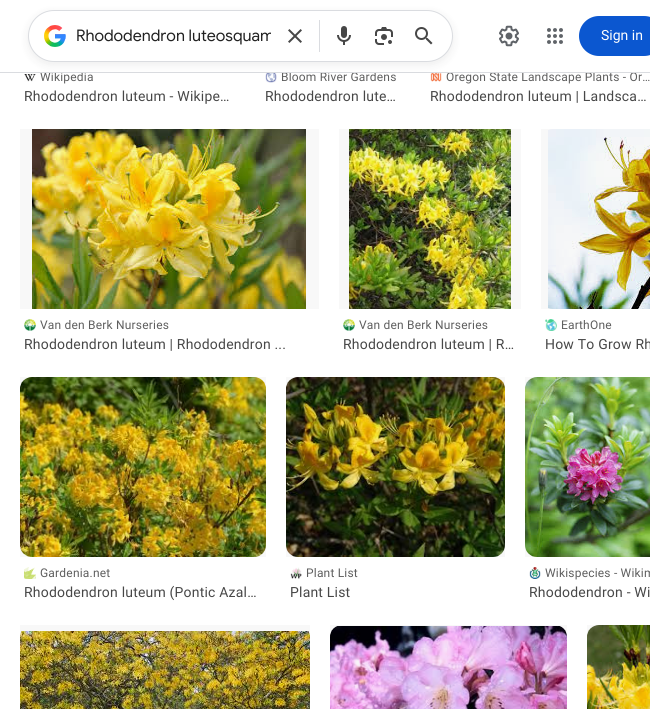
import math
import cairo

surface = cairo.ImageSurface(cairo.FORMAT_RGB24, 650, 709)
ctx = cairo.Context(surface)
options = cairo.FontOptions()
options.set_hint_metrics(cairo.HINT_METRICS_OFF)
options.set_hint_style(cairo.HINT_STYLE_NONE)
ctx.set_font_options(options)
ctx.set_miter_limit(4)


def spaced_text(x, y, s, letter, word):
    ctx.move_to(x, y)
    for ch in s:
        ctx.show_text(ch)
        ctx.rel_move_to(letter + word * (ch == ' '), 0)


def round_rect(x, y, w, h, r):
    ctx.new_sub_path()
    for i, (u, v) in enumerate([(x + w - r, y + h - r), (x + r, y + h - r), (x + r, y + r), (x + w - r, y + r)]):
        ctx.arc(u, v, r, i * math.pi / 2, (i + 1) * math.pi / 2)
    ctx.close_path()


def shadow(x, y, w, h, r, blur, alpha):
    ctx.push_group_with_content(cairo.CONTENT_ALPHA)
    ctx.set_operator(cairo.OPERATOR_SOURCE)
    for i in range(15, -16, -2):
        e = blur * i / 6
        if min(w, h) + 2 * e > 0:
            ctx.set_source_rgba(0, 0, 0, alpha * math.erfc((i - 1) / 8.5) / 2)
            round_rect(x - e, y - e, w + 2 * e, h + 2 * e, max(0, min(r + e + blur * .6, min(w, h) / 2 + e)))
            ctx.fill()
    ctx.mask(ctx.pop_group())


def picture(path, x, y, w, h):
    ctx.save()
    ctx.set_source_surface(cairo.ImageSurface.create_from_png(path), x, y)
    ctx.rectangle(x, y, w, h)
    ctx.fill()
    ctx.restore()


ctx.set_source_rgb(1, 1, 1)
ctx.paint()
ctx.select_font_face("Roboto")
ctx.set_font_size(12)
ctx.set_source_rgb(0.369, 0.369, 0.369)
spaced_text(40, 81, "Wikipedia", 0.2, 0)
spaced_text(281, 81, "Bloom River Gardens", 0.2, 0)
spaced_text(446, 81, "Oregon State Landscape Plants - Or…", 0.2, 0)
ctx.set_source_rgb(0.855, 0.863, 0.878)
ctx.rectangle(0, 72, 650, 1)
ctx.fill()
picture("img8.png", 24, 74, 12, 8)
picture("img9.png", 265, 73, 12, 10)
picture("img10.png", 430, 73, 12, 9)
ctx.set_source_rgb(0.122, 0.122, 0.122)
shadow(28, 13, 425, 52, 26, 5, 0.08)
ctx.set_source_rgb(1, 1, 1)
round_rect(28.5, 10.5, 424, 51, 25.5)
ctx.fill_preserve()
ctx.set_source_rgb(0.855, 0.863, 0.878)
ctx.set_line_width(1)
ctx.stroke()
picture("img1.png", 44, 25, 22, 22)
ctx.save()
ctx.rectangle(76, 11, 195, 42)
ctx.clip()
ctx.select_font_face("Google Sans")
ctx.set_font_size(16)
ctx.set_source_rgb(0.129, 0.129, 0.129)
ctx.move_to(76, 41)
ctx.show_text("Rhododendron luteosquam")
ctx.restore()
picture("img2.png", 288, 29, 14, 14)
ctx.rectangle(319, 20, 1, 32)
ctx.fill()
picture("img3.png", 337, 26, 14, 19)
picture("img4.png", 375, 27, 18, 18)
picture("img5.png", 415, 27, 18, 18)
picture("img6.png", 499, 25, 20, 22)
picture("img7.png", 547, 28, 16, 16)
ctx.set_source_rgb(0.043, 0.341, 0.816)
round_rect(579, 16, 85, 40, 20)
ctx.fill()
ctx.set_font_size(14)
ctx.set_source_rgb(1, 1, 1)
ctx.move_to(601, 40)
ctx.show_text("Sign in")
ctx.set_source_rgb(0.278, 0.278, 0.278)
spaced_text(24, 101, "Rhododendron luteum - Wikipe…", 0.2, 0)
spaced_text(265, 101, "Rhododendron lute…", 0.2, 0)
spaced_text(430, 101, "Rhododendron luteum | Landsca…", 0.2, 0)
picture("img11.png", 32, 129, 274, 180)
ctx.set_source_rgba(0, 0, 0, 0.03)
ctx.rectangle(20, 129, 299, 180)
ctx.fill()
picture("img12.png", 24, 319, 12, 12)
ctx.set_font_size(12)
ctx.set_source_rgb(0.369, 0.369, 0.369)
spaced_text(40, 329, "Van den Berk Nurseries", 0.2, 0)
ctx.set_font_size(14)
ctx.set_source_rgb(0.278, 0.278, 0.278)
spaced_text(24, 349, "Rhododendron luteum | Rhododendron ...", 0.2, 0)
picture("img13.png", 349, 129, 162, 180)
ctx.set_source_rgba(0, 0, 0, 0.03)
ctx.rectangle(339, 129, 182, 180)
ctx.fill()
picture("img14.png", 343, 319, 12, 12)
ctx.set_font_size(12)
ctx.set_source_rgb(0.369, 0.369, 0.369)
spaced_text(359, 329, "Van den Berk Nurseries", 0.2, 0)
ctx.set_font_size(14)
ctx.set_source_rgb(0.278, 0.278, 0.278)
spaced_text(343, 349, "Rhododendron luteum | R…", 0.2, 0)
picture("img15.png", 548, 129, 102, 180)
ctx.set_source_rgba(0, 0, 0, 0.03)
ctx.rectangle(541, 129, 109, 180)
ctx.fill()
picture("img16.png", 545, 319, 12, 12)
ctx.set_font_size(12)
ctx.set_source_rgb(0.369, 0.369, 0.369)
spaced_text(561, 329, "EarthOne", 0.2, 0)
ctx.set_font_size(14)
ctx.set_source_rgb(0.278, 0.278, 0.278)
spaced_text(545, 349, "How To Grow Rh", 0.2, 0)
picture("img17.png", 20, 377, 246, 180)
ctx.set_source_rgba(0, 0, 0, 0.03)
ctx.rectangle(20, 377, 246, 180)
ctx.fill()
picture("img18.png", 24, 567, 12, 12)
ctx.set_font_size(12)
ctx.set_source_rgb(0.369, 0.369, 0.369)
spaced_text(40, 577, "Gardenia.net", 0.2, 0)
ctx.set_font_size(14)
ctx.set_source_rgb(0.278, 0.278, 0.278)
spaced_text(24, 597, "Rhododendron luteum (Pontic Azal…", 0.2, 0)
picture("img19.png", 286, 377, 219, 180)
ctx.set_source_rgba(0, 0, 0, 0.03)
ctx.rectangle(286, 377, 219, 180)
ctx.fill()
picture("img20.png", 290, 567, 12, 12)
ctx.set_font_size(12)
ctx.set_source_rgb(0.369, 0.369, 0.369)
spaced_text(306, 577, "Plant List", 0.2, 0)
ctx.set_font_size(14)
ctx.set_source_rgb(0.278, 0.278, 0.278)
spaced_text(290, 597, "Plant List", 0.2, 0)
picture("img21.png", 525, 377, 125, 180)
ctx.set_source_rgba(0, 0, 0, 0.03)
ctx.rectangle(525, 377, 125, 180)
ctx.fill()
picture("img22.png", 529, 567, 12, 12)
ctx.set_font_size(12)
ctx.set_source_rgb(0.369, 0.369, 0.369)
spaced_text(545, 577, "Wikispecies - Wikim", 0.2, 0)
ctx.set_font_size(14)
ctx.set_source_rgb(0.278, 0.278, 0.278)
spaced_text(529, 597, "Rhododendron - Wi", 0.2, 0)
picture("img23.png", 20, 631, 290, 78)
ctx.set_source_rgba(0, 0, 0, 0.03)
ctx.rectangle(20, 625, 290, 84)
ctx.fill()
picture("img24.png", 330, 626, 237, 83)
ctx.rectangle(330, 625, 237, 84)
ctx.fill()
picture("img25.png", 587, 625, 63, 84)
ctx.rectangle(587, 625, 63, 84)
ctx.fill()
surface.write_to_png("page.png")
